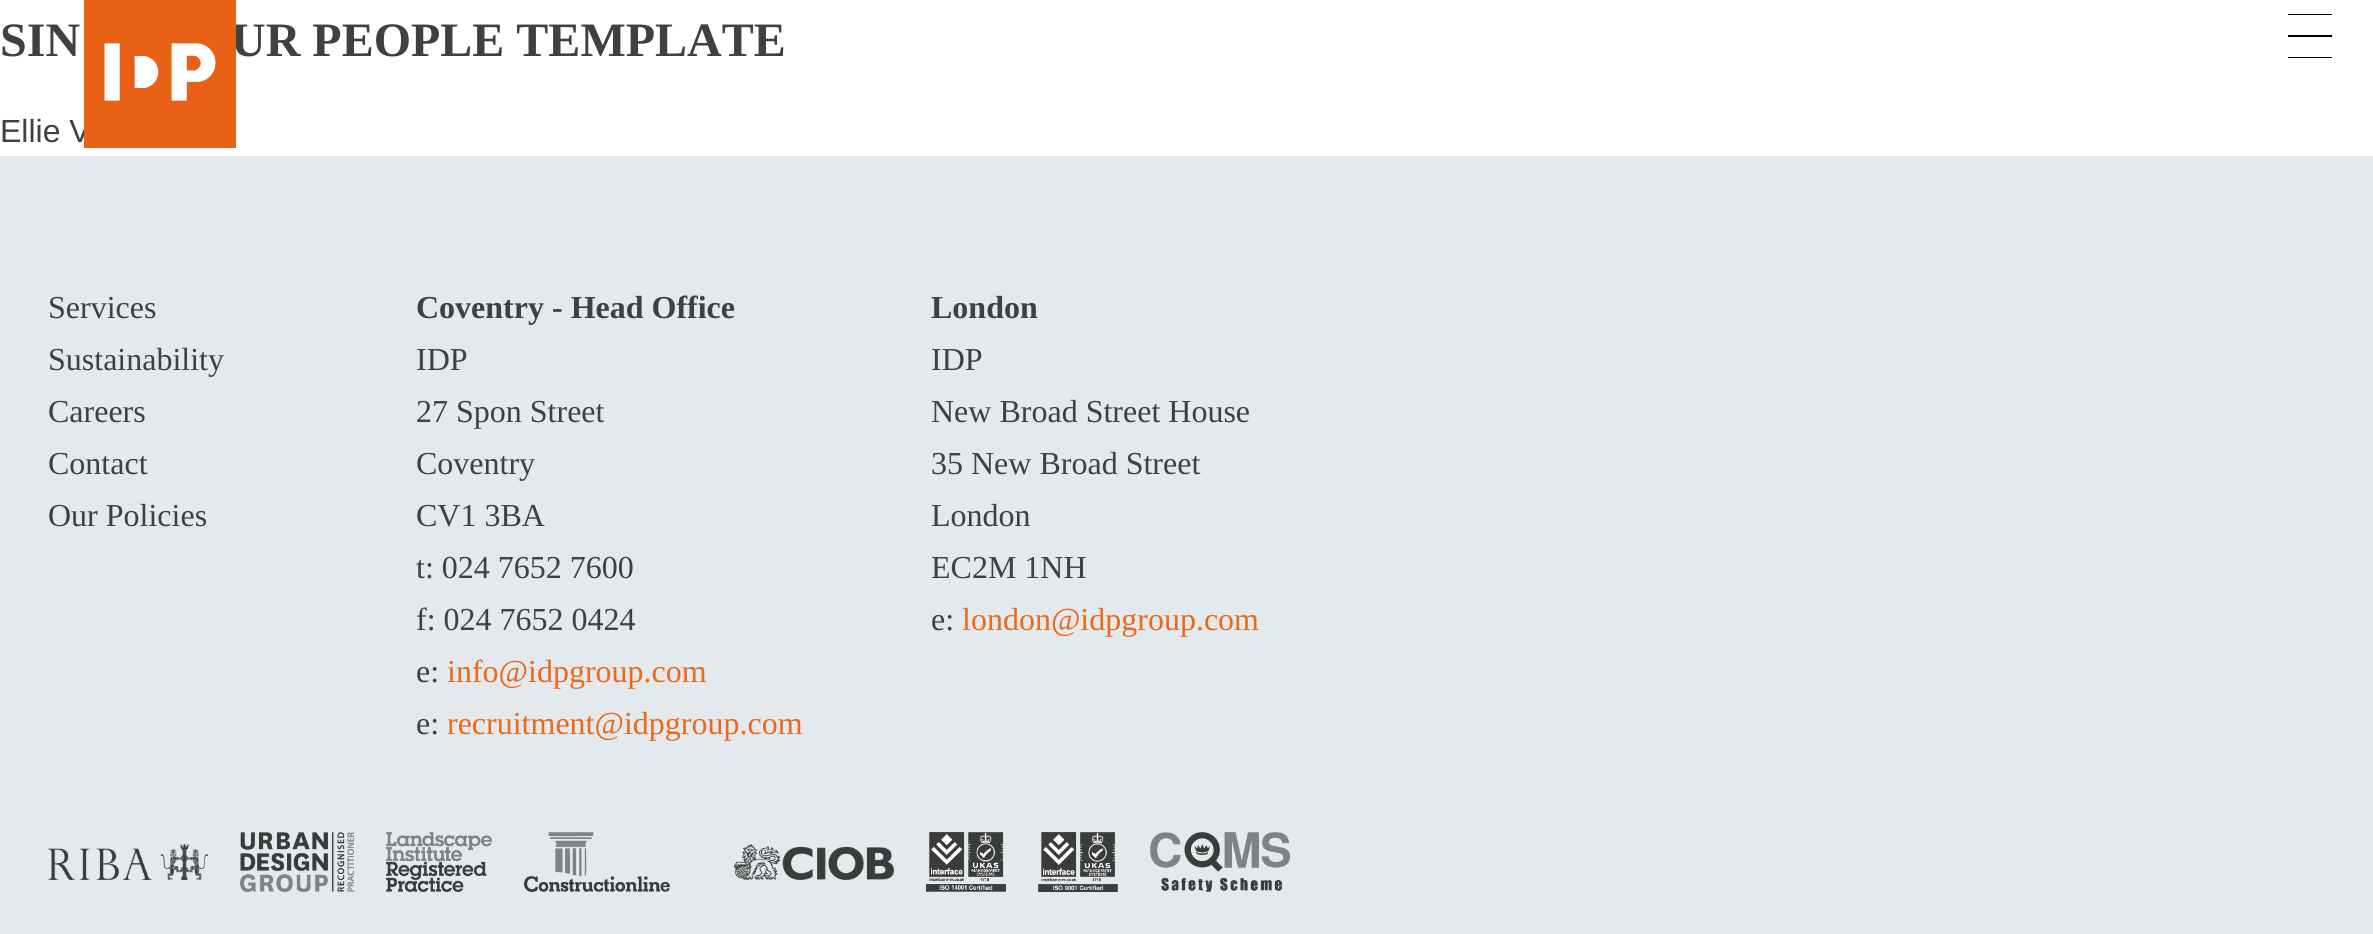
import math
import cairo

surface = cairo.ImageSurface(cairo.FORMAT_RGB24, 2373, 934)
ctx = cairo.Context(surface)
options = cairo.FontOptions()
options.set_hint_metrics(cairo.HINT_METRICS_OFF)
options.set_hint_style(cairo.HINT_STYLE_NONE)
ctx.set_font_options(options)
ctx.set_miter_limit(4)


def picture(path, x, y, w, h):
    ctx.save()
    ctx.set_source_surface(cairo.ImageSurface.create_from_png(path), x, y)
    ctx.rectangle(x, y, w, h)
    ctx.fill()
    ctx.restore()


ctx.set_source_rgb(1, 1, 1)
ctx.paint()
ctx.select_font_face("Liberation Serif", cairo.FONT_SLANT_NORMAL, cairo.FONT_WEIGHT_BOLD)
ctx.set_font_size(48)
ctx.set_source_rgb(0.251, 0.251, 0.251)
ctx.move_to(231, 56)
ctx.show_text("UR PEOPLE TEMPLATE")
ctx.select_font_face("Liberation Sans")
ctx.set_font_size(32)
ctx.move_to(0, 142)
ctx.show_text("Ellie V")
picture("img1.png", 84, 0, 152, 148)
ctx.set_source_rgb(0, 0, 0)
ctx.rectangle(2288, 14, 44, 1)
ctx.fill()
ctx.rectangle(2288, 35, 44, 2)
ctx.fill()
ctx.rectangle(2288, 57, 44, 1)
ctx.fill()
ctx.select_font_face("Liberation Serif", cairo.FONT_SLANT_NORMAL, cairo.FONT_WEIGHT_BOLD)
ctx.set_font_size(48)
ctx.set_source_rgb(0.251, 0.251, 0.251)
ctx.move_to(0, 56)
ctx.show_text("SIN")
ctx.set_source_rgb(0.89, 0.914, 0.925)
ctx.rectangle(0, 156, 2373, 778)
ctx.fill()
ctx.select_font_face("Liberation Serif")
ctx.set_font_size(32)
ctx.set_source_rgb(0.251, 0.251, 0.251)
ctx.move_to(48, 318)
ctx.show_text("Services")
ctx.move_to(48, 370)
ctx.show_text("Sustainability")
ctx.move_to(48, 422)
ctx.show_text("Careers")
ctx.move_to(48, 474)
ctx.show_text("Contact")
ctx.move_to(48, 526)
ctx.show_text("Our Policies")
ctx.select_font_face("Liberation Serif", cairo.FONT_SLANT_NORMAL, cairo.FONT_WEIGHT_BOLD)
ctx.move_to(416, 318)
ctx.show_text("Coventry - Head Office")
ctx.select_font_face("Liberation Serif")
ctx.move_to(416, 370)
ctx.show_text("IDP")
ctx.move_to(416, 422)
ctx.show_text("27 Spon Street")
ctx.move_to(416, 474)
ctx.show_text("Coventry")
ctx.move_to(416, 526)
ctx.show_text("CV1 3BA")
ctx.move_to(416, 578)
ctx.show_text("t: 024 7652 7600")
ctx.move_to(416, 630)
ctx.show_text("f: 024 7652 0424")
ctx.move_to(416, 682)
ctx.show_text("e:")
ctx.set_source_rgb(0.922, 0.412, 0.094)
ctx.move_to(447, 682)
ctx.show_text("info@idpgroup.com")
ctx.set_source_rgb(0.251, 0.251, 0.251)
ctx.move_to(416, 734)
ctx.show_text("e:")
ctx.set_source_rgb(0.922, 0.412, 0.094)
ctx.move_to(447, 734)
ctx.show_text("recruitment@idpgroup.com")
ctx.select_font_face("Liberation Serif", cairo.FONT_SLANT_NORMAL, cairo.FONT_WEIGHT_BOLD)
ctx.set_source_rgb(0.251, 0.251, 0.251)
ctx.move_to(931, 318)
ctx.show_text("London")
ctx.select_font_face("Liberation Serif")
ctx.move_to(931, 370)
ctx.show_text("IDP")
ctx.move_to(931, 422)
ctx.show_text("New Broad Street House")
ctx.move_to(931, 474)
ctx.show_text("35 New Broad Street")
ctx.move_to(931, 526)
ctx.show_text("London")
ctx.move_to(931, 578)
ctx.show_text("EC2M 1NH")
ctx.move_to(931, 630)
ctx.show_text("e:")
ctx.set_source_rgb(0.922, 0.412, 0.094)
ctx.move_to(962, 630)
ctx.show_text("london@idpgroup.com")
picture("img2.png", 48, 844, 160, 36)
picture("img3.png", 240, 832, 114, 60)
picture("img4.png", 386, 832, 106, 60)
picture("img5.png", 524, 832, 146, 60)
picture("img6.png", 734, 844, 160, 36)
picture("img7.png", 926, 832, 80, 60)
picture("img8.png", 1038, 832, 80, 60)
picture("img9.png", 1150, 832, 140, 60)
surface.write_to_png("page.png")
